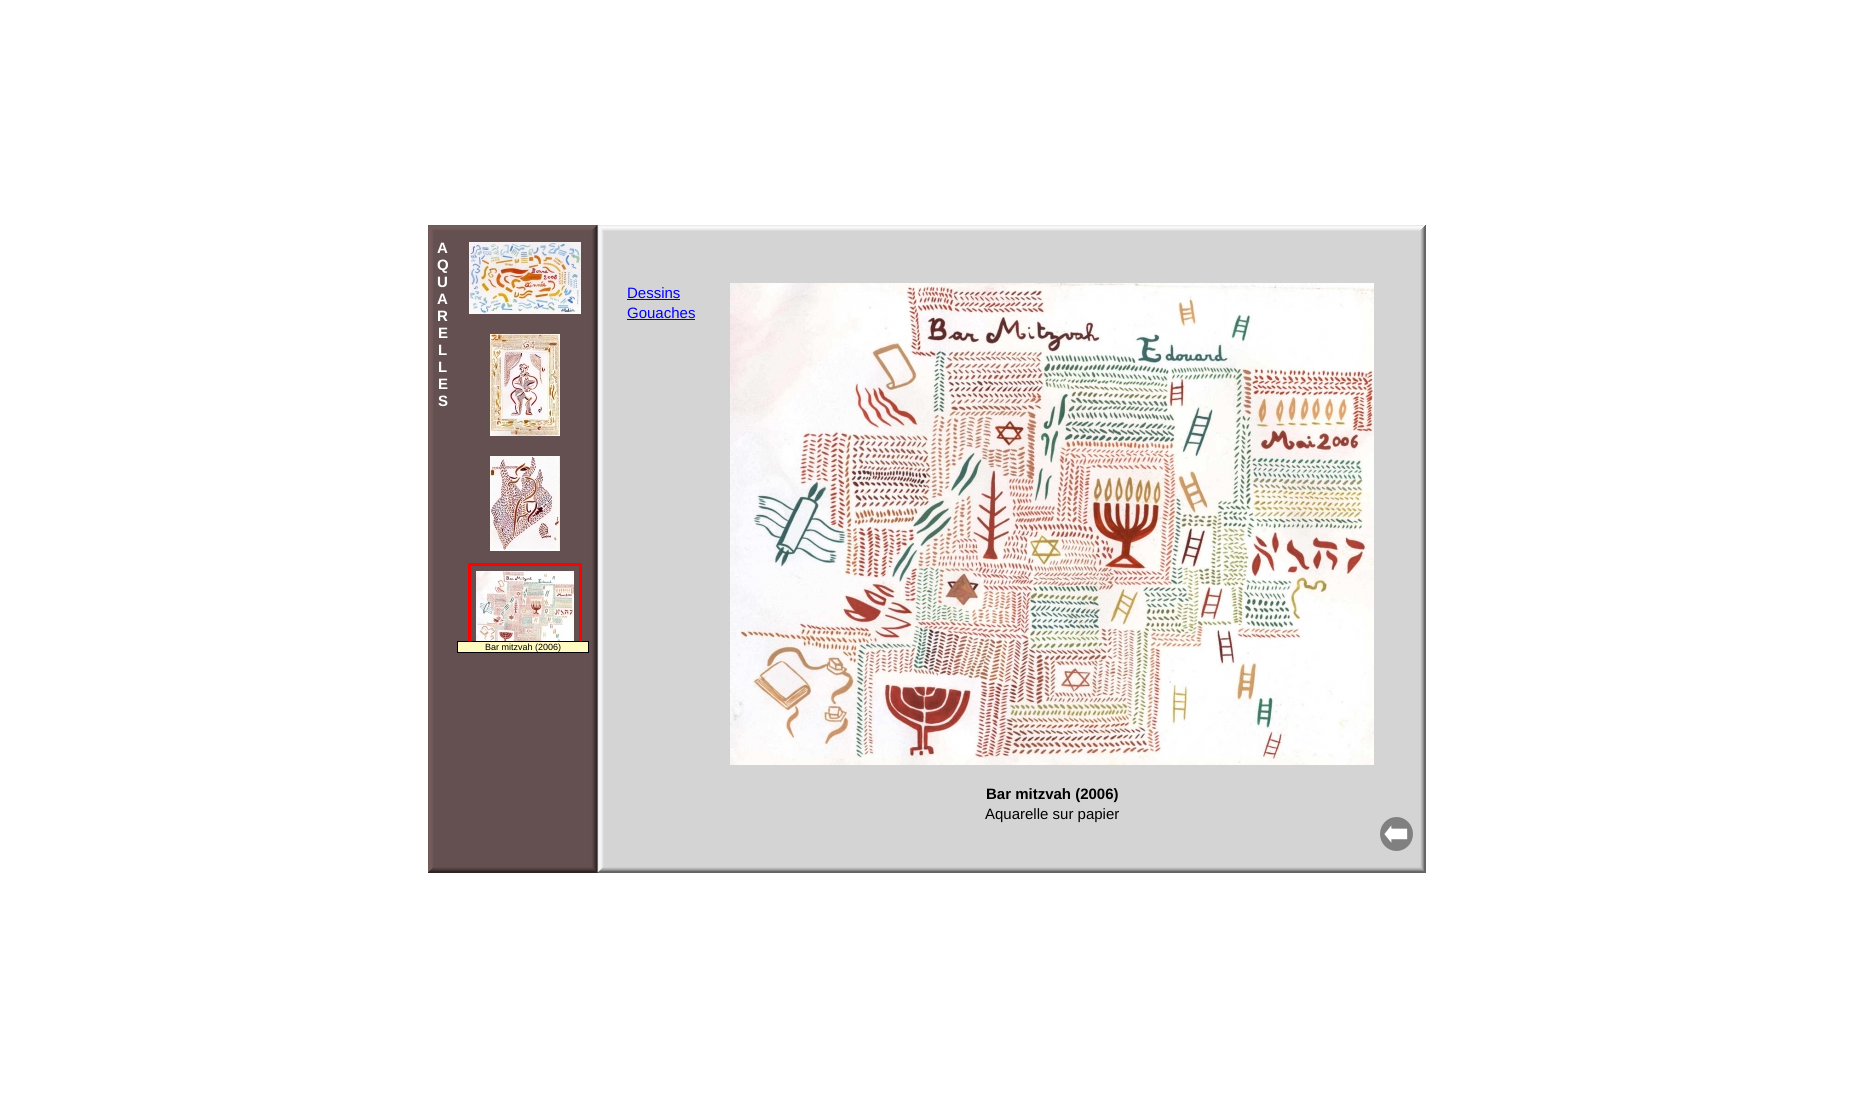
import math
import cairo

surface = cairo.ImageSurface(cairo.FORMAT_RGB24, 1853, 1098)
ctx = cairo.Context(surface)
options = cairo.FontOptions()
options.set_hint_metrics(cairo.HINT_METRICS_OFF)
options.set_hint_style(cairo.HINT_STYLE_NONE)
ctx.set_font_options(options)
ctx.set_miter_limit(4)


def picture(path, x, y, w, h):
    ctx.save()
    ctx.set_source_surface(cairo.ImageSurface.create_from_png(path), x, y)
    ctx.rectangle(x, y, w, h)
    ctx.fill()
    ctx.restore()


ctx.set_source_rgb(1, 1, 1)
ctx.paint()
picture("img1.png", 428, 225, 998, 648)
ctx.select_font_face("Liberation Sans", cairo.FONT_SLANT_NORMAL, cairo.FONT_WEIGHT_BOLD)
ctx.set_font_size(15)
ctx.set_source_rgb(1, 1, 1)
ctx.move_to(437, 253)
ctx.show_text("A")
ctx.move_to(437, 270)
ctx.show_text("Q")
ctx.move_to(437, 287)
ctx.show_text("U")
ctx.move_to(437, 304)
ctx.show_text("A")
ctx.move_to(437, 321)
ctx.show_text("R")
ctx.move_to(438, 338)
ctx.show_text("E")
ctx.move_to(438, 355)
ctx.show_text("L")
ctx.move_to(438, 372)
ctx.show_text("L")
ctx.move_to(438, 389)
ctx.show_text("E")
ctx.move_to(438, 406)
ctx.show_text("S")
ctx.select_font_face("Liberation Sans")
ctx.set_source_rgb(0, 0, 1)
ctx.move_to(627, 298)
ctx.show_text("Dessins")
ctx.rectangle(627, 299, 53, 1)
ctx.fill()
picture("img2.png", 730, 283, 644, 482)
ctx.move_to(627, 318)
ctx.show_text("Gouaches")
ctx.rectangle(627, 319, 68, 1)
ctx.fill()
picture("img3.png", 469, 242, 112, 72)
picture("img4.png", 490, 334, 70, 102)
picture("img5.png", 490, 456, 70, 95)
ctx.set_source_rgb(1, 0, 0)
ctx.rectangle(468, 563, 114, 3)
ctx.fill()
ctx.rectangle(579, 563, 3, 78)
ctx.fill()
ctx.rectangle(468, 563, 3, 78)
ctx.fill()
picture("img6.png", 476, 571, 98, 70)
ctx.set_source_rgb(1, 0.98, 0.753)
ctx.rectangle(457.5, 641.5, 131, 11)
ctx.fill_preserve()
ctx.set_source_rgb(0, 0, 0)
ctx.set_line_width(1)
ctx.stroke()
ctx.set_font_size(9)
ctx.move_to(485, 650)
ctx.show_text("Bar mitzvah (2006)")
ctx.select_font_face("Liberation Sans", cairo.FONT_SLANT_NORMAL, cairo.FONT_WEIGHT_BOLD)
ctx.set_font_size(15)
ctx.move_to(986, 799)
ctx.show_text("Bar mitzvah (2006)")
ctx.select_font_face("Liberation Sans")
ctx.move_to(985, 819)
ctx.show_text("Aquarelle sur papier")
picture("img7.png", 1380, 817, 33, 34)
surface.write_to_png("page.png")
